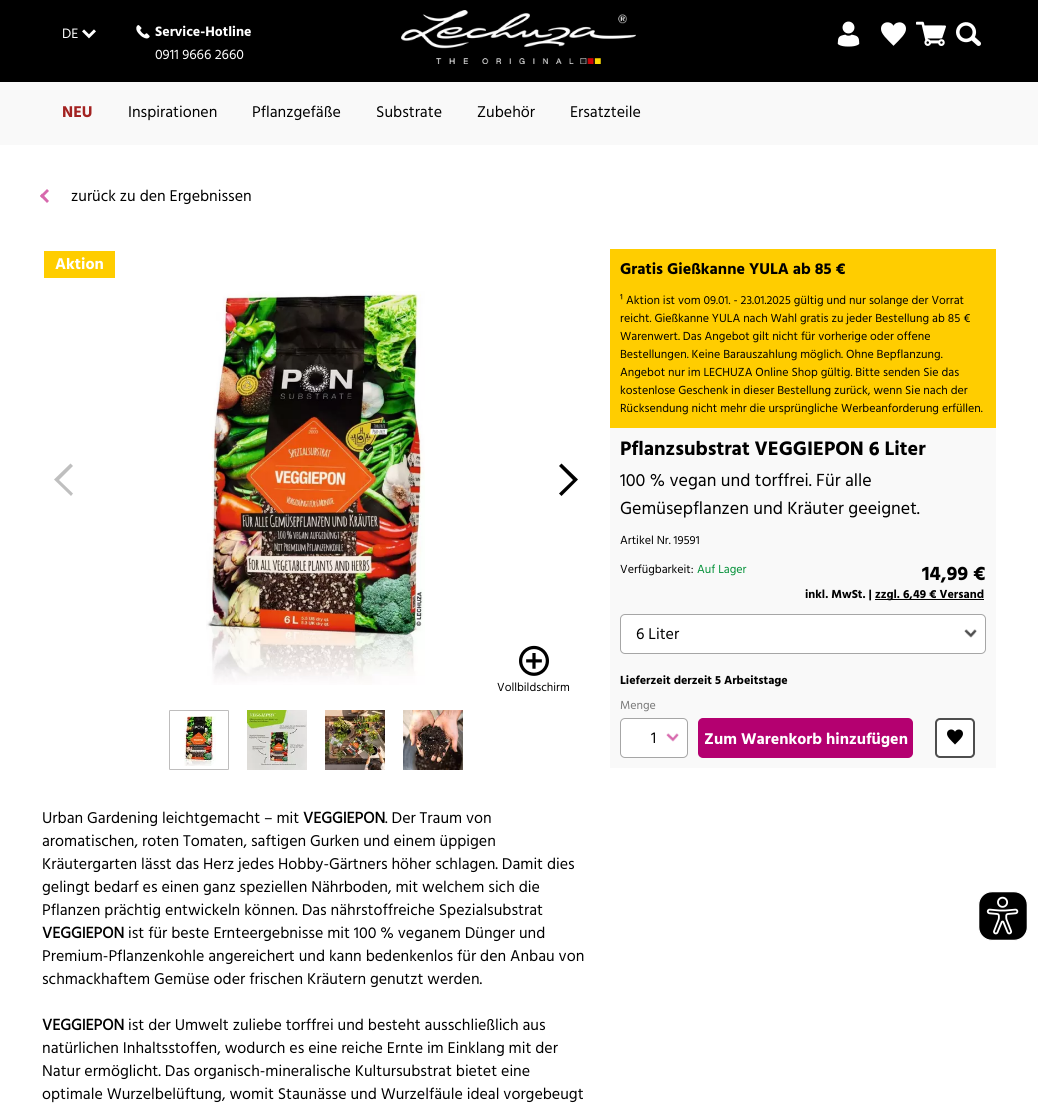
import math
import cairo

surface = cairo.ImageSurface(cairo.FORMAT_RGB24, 1038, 1107)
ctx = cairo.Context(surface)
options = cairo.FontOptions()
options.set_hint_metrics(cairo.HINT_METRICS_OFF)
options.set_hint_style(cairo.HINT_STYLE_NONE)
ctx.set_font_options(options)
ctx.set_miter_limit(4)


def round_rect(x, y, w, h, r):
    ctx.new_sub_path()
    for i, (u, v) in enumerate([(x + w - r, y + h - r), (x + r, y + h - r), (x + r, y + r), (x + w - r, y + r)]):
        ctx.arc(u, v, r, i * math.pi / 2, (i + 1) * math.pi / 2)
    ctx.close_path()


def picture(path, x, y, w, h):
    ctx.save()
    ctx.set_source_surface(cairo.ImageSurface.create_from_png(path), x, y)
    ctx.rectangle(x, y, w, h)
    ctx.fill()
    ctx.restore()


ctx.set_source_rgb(1, 1, 1)
ctx.paint()
ctx.set_source_rgb(0, 0, 0)
ctx.rectangle(0, 0, 1038, 82)
ctx.fill()
ctx.select_font_face("Hind")
ctx.set_font_size(14)
ctx.set_source_rgb(1, 1, 1)
ctx.move_to(62, 38)
ctx.show_text("DE")
picture("img1.png", 82, 29, 14, 10)
picture("img2.png", 136, 25, 14, 14)
ctx.select_font_face("Hind", cairo.FONT_SLANT_NORMAL, cairo.FONT_WEIGHT_BOLD)
ctx.move_to(155, 36)
ctx.show_text("Service-Hotline")
ctx.select_font_face("Hind")
ctx.move_to(155, 59)
ctx.show_text("0911 9666 2660")
picture("img3.png", 401, 10, 235, 54)
picture("img4.png", 837, 21, 23, 26)
picture("img5.png", 881, 22, 25, 24)
picture("img6.png", 916, 21, 30, 25)
picture("img7.png", 956, 22, 25, 24)
ctx.set_source_rgb(0.976, 0.976, 0.976)
ctx.rectangle(0, 82, 1038, 63)
ctx.fill()
ctx.select_font_face("Hind", cairo.FONT_SLANT_NORMAL, cairo.FONT_WEIGHT_BOLD)
ctx.set_font_size(16)
ctx.set_source_rgb(0.639, 0.133, 0.129)
ctx.move_to(62, 117)
ctx.show_text("NEU")
ctx.select_font_face("Hind")
ctx.set_source_rgb(0, 0, 0)
ctx.move_to(128, 117)
ctx.show_text("Inspirationen")
ctx.move_to(252, 117)
ctx.show_text("Pflanzgefäße")
ctx.move_to(376, 117)
ctx.show_text("Substrate")
ctx.move_to(477, 117)
ctx.show_text("Zubehör")
ctx.move_to(570, 117)
ctx.show_text("Ersatzteile")
ctx.set_source_rgb(0.843, 0.412, 0.678)
ctx.new_path()
ctx.move_to(42, 193.5)
ctx.line_to(49, 201)
ctx.line_to(47, 203)
ctx.line_to(40, 196)
ctx.close_path()
ctx.fill()
ctx.new_path()
ctx.move_to(47, 189)
ctx.line_to(49, 191)
ctx.line_to(42, 198)
ctx.line_to(40, 196)
ctx.close_path()
ctx.fill()
ctx.set_source_rgb(0, 0, 0)
ctx.move_to(71, 201)
ctx.show_text("zurück zu den Ergebnissen")
ctx.set_source_rgb(1, 0.804, 0)
ctx.rectangle(44, 251, 71, 27)
ctx.fill()
ctx.select_font_face("Hind", cairo.FONT_SLANT_NORMAL, cairo.FONT_WEIGHT_BOLD)
ctx.set_source_rgb(1, 1, 1)
ctx.move_to(55, 269)
ctx.show_text("Aktion")
ctx.set_source_rgb(0.749, 0.749, 0.749)
ctx.new_path()
ctx.move_to(73, 466)
ctx.line_to(70.5, 463.5)
ctx.line_to(54, 479.5)
ctx.line_to(71, 496)
ctx.line_to(73, 493.5)
ctx.line_to(59, 480)
ctx.close_path()
ctx.fill()
picture("img8.png", 206, 291, 219, 394)
ctx.set_source_rgb(0, 0, 0)
ctx.new_path()
ctx.move_to(559, 466)
ctx.line_to(561.5, 463.5)
ctx.line_to(578, 479.5)
ctx.line_to(561.5, 496)
ctx.line_to(559, 493.5)
ctx.line_to(573, 480)
ctx.close_path()
ctx.fill()
picture("img9.png", 519, 645, 30, 31)
ctx.select_font_face("Hind")
ctx.set_font_size(12)
ctx.move_to(497, 691)
ctx.show_text("Vollbildschirm")
round_rect(169.5, 710.5, 59, 59, 0.5)
ctx.set_source_rgb(0.745, 0.741, 0.741)
ctx.set_line_width(1)
ctx.stroke()
picture("img10.png", 184, 716, 32, 50)
picture("img11.png", 247, 710, 60, 60)
picture("img12.png", 325, 710, 60, 60)
picture("img13.png", 403, 710, 60, 60)
ctx.set_source_rgb(0.976, 0.976, 0.976)
ctx.rectangle(610, 428, 386, 340)
ctx.fill()
ctx.set_source_rgb(1, 0.804, 0)
ctx.rectangle(610, 249, 386, 179)
ctx.fill()
ctx.select_font_face("Hind", cairo.FONT_SLANT_NORMAL, cairo.FONT_WEIGHT_BOLD)
ctx.set_font_size(16)
ctx.set_source_rgb(0, 0, 0)
ctx.move_to(620, 274)
ctx.show_text("Gratis Gießkanne YULA ab 85 €")
ctx.select_font_face("Hind")
ctx.set_font_size(12)
ctx.move_to(620, 304)
ctx.show_text("¹ Aktion ist vom 09.01. - 23.01.2025 gültig und nur solange der Vorrat")
ctx.move_to(620, 322)
ctx.show_text("reicht. Gießkanne YULA nach Wahl gratis zu jeder Bestellung ab 85 €")
ctx.move_to(620, 340)
ctx.show_text("Warenwert. Das Angebot gilt nicht für vorherige oder offene")
ctx.move_to(620, 358)
ctx.show_text("Bestellungen. Keine Barauszahlung möglich. Ohne Bepflanzung.")
ctx.move_to(620, 376)
ctx.show_text("Angebot nur im LECHUZA Online Shop gültig. Bitte senden Sie das")
ctx.move_to(620, 394)
ctx.show_text("kostenlose Geschenk in dieser Bestellung zurück, wenn Sie nach der")
ctx.move_to(620, 412)
ctx.show_text("Rücksendung nicht mehr die ursprüngliche Werbeanforderung erfüllen.")
ctx.select_font_face("Hind", cairo.FONT_SLANT_NORMAL, cairo.FONT_WEIGHT_BOLD)
ctx.set_font_size(20)
ctx.move_to(620, 455)
ctx.show_text("Pflanzsubstrat VEGGIEPON 6 Liter")
ctx.select_font_face("Hind")
ctx.set_font_size(18)
ctx.move_to(620, 486)
ctx.show_text("100 % vegan und torffrei. Für alle")
ctx.move_to(620, 514)
ctx.show_text("Gemüsepflanzen und Kräuter geeignet.")
ctx.set_font_size(12)
ctx.move_to(620, 544)
ctx.show_text("Artikel Nr. 19591")
ctx.move_to(620, 573)
ctx.show_text("Verfügbarkeit:")
ctx.set_source_rgb(0, 0.565, 0.212)
ctx.move_to(697, 573)
ctx.show_text("Auf Lager")
ctx.select_font_face("Hind", cairo.FONT_SLANT_NORMAL, cairo.FONT_WEIGHT_BOLD)
ctx.set_font_size(20)
ctx.set_source_rgb(0, 0, 0)
ctx.move_to(922, 580)
ctx.show_text("14,99 €")
ctx.set_font_size(12)
ctx.move_to(805, 598)
ctx.show_text("inkl. MwSt. |")
ctx.rectangle(875, 599, 109, 1)
ctx.fill()
ctx.move_to(875, 598)
ctx.show_text("zzgl. 6,49 € Versand")
ctx.set_source_rgb(1, 1, 1)
round_rect(620, 614, 366, 40, 5)
ctx.fill()
picture("img14.png", 964, 629, 13, 9)
round_rect(620.5, 614.5, 365, 39, 4.5)
ctx.set_source_rgb(0.651, 0.651, 0.651)
ctx.stroke()
ctx.select_font_face("Hind")
ctx.set_font_size(16)
ctx.set_source_rgb(0, 0, 0)
ctx.move_to(636, 639)
ctx.show_text("6 Liter")
ctx.select_font_face("Hind", cairo.FONT_SLANT_NORMAL, cairo.FONT_WEIGHT_BOLD)
ctx.set_font_size(12)
ctx.move_to(620, 684)
ctx.show_text("Lieferzeit derzeit 5 Arbeitstage")
ctx.select_font_face("Hind")
ctx.set_source_rgb(0.471, 0.471, 0.471)
ctx.move_to(620, 709)
ctx.show_text("Menge")
ctx.set_source_rgb(1, 1, 1)
round_rect(620, 718, 68, 40, 5)
ctx.fill()
picture("img15.png", 666, 733, 13, 9)
round_rect(620.5, 718.5, 67, 39, 4.5)
ctx.set_source_rgb(0.651, 0.651, 0.651)
ctx.stroke()
ctx.set_font_size(16)
ctx.set_source_rgb(0, 0, 0)
ctx.move_to(651, 743)
ctx.show_text("1")
ctx.set_source_rgb(0.706, 0, 0.439)
round_rect(699, 719, 213, 38, 4)
ctx.fill_preserve()
ctx.set_line_width(2)
ctx.stroke()
ctx.select_font_face("Hind", cairo.FONT_SLANT_NORMAL, cairo.FONT_WEIGHT_BOLD)
ctx.set_source_rgb(1, 1, 1)
ctx.move_to(704, 744)
ctx.show_text("Zum Warenkorb hinzufügen")
round_rect(936, 719, 38, 38, 4)
ctx.fill_preserve()
ctx.set_source_rgb(0.306, 0.306, 0.306)
ctx.stroke()
picture("img16.png", 947, 729, 16, 16)
ctx.select_font_face("Hind")
ctx.set_source_rgb(0, 0, 0)
ctx.move_to(42, 823)
ctx.show_text("Urban Gardening leichtgemacht – mit")
ctx.select_font_face("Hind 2", cairo.FONT_SLANT_NORMAL, cairo.FONT_WEIGHT_BOLD)
ctx.move_to(303, 823)
ctx.show_text("VEGGIEPON")
ctx.select_font_face("Hind")
ctx.move_to(385, 823)
ctx.show_text(". Der Traum von")
ctx.move_to(42, 846)
ctx.show_text("aromatischen, roten Tomaten, saftigen Gurken und einem üppigen")
ctx.move_to(42, 869)
ctx.show_text("Kräutergarten lässt das Herz jedes Hobby-Gärtners höher schlagen. Damit dies")
ctx.move_to(42, 892)
ctx.show_text("gelingt bedarf es einen ganz speziellen Nährboden, mit welchem sich die")
ctx.move_to(42, 915)
ctx.show_text("Pflanzen prächtig entwickeln können. Das nährstoffreiche Spezialsubstrat")
ctx.select_font_face("Hind 2", cairo.FONT_SLANT_NORMAL, cairo.FONT_WEIGHT_BOLD)
ctx.move_to(42, 938)
ctx.show_text("VEGGIEPON")
ctx.select_font_face("Hind")
ctx.move_to(128, 938)
ctx.show_text("ist für beste Ernteergebnisse mit 100 % veganem Dünger und")
ctx.move_to(42, 961)
ctx.show_text("Premium-Pflanzenkohle angereichert und kann bedenkenlos für den Anbau von")
ctx.move_to(42, 984)
ctx.show_text("schmackhaftem Gemüse oder frischen Kräutern genutzt werden.")
ctx.select_font_face("Hind 2", cairo.FONT_SLANT_NORMAL, cairo.FONT_WEIGHT_BOLD)
ctx.move_to(42, 1030)
ctx.show_text("VEGGIEPON")
ctx.select_font_face("Hind")
ctx.move_to(128, 1030)
ctx.show_text("ist der Umwelt zuliebe torffrei und besteht ausschließlich aus")
ctx.move_to(42, 1053)
ctx.show_text("natürlichen Inhaltsstoffen, wodurch es eine reiche Ernte im Einklang mit der")
ctx.move_to(42, 1076)
ctx.show_text("Natur ermöglicht. Das organisch-mineralische Kultursubstrat bietet eine")
ctx.move_to(42, 1099)
ctx.show_text("optimale Wurzelbelüftung, womit Staunässe und Wurzelfäule ideal vorgebeugt")
picture("img17.png", 978, 891, 50, 50)
surface.write_to_png("page.png")
